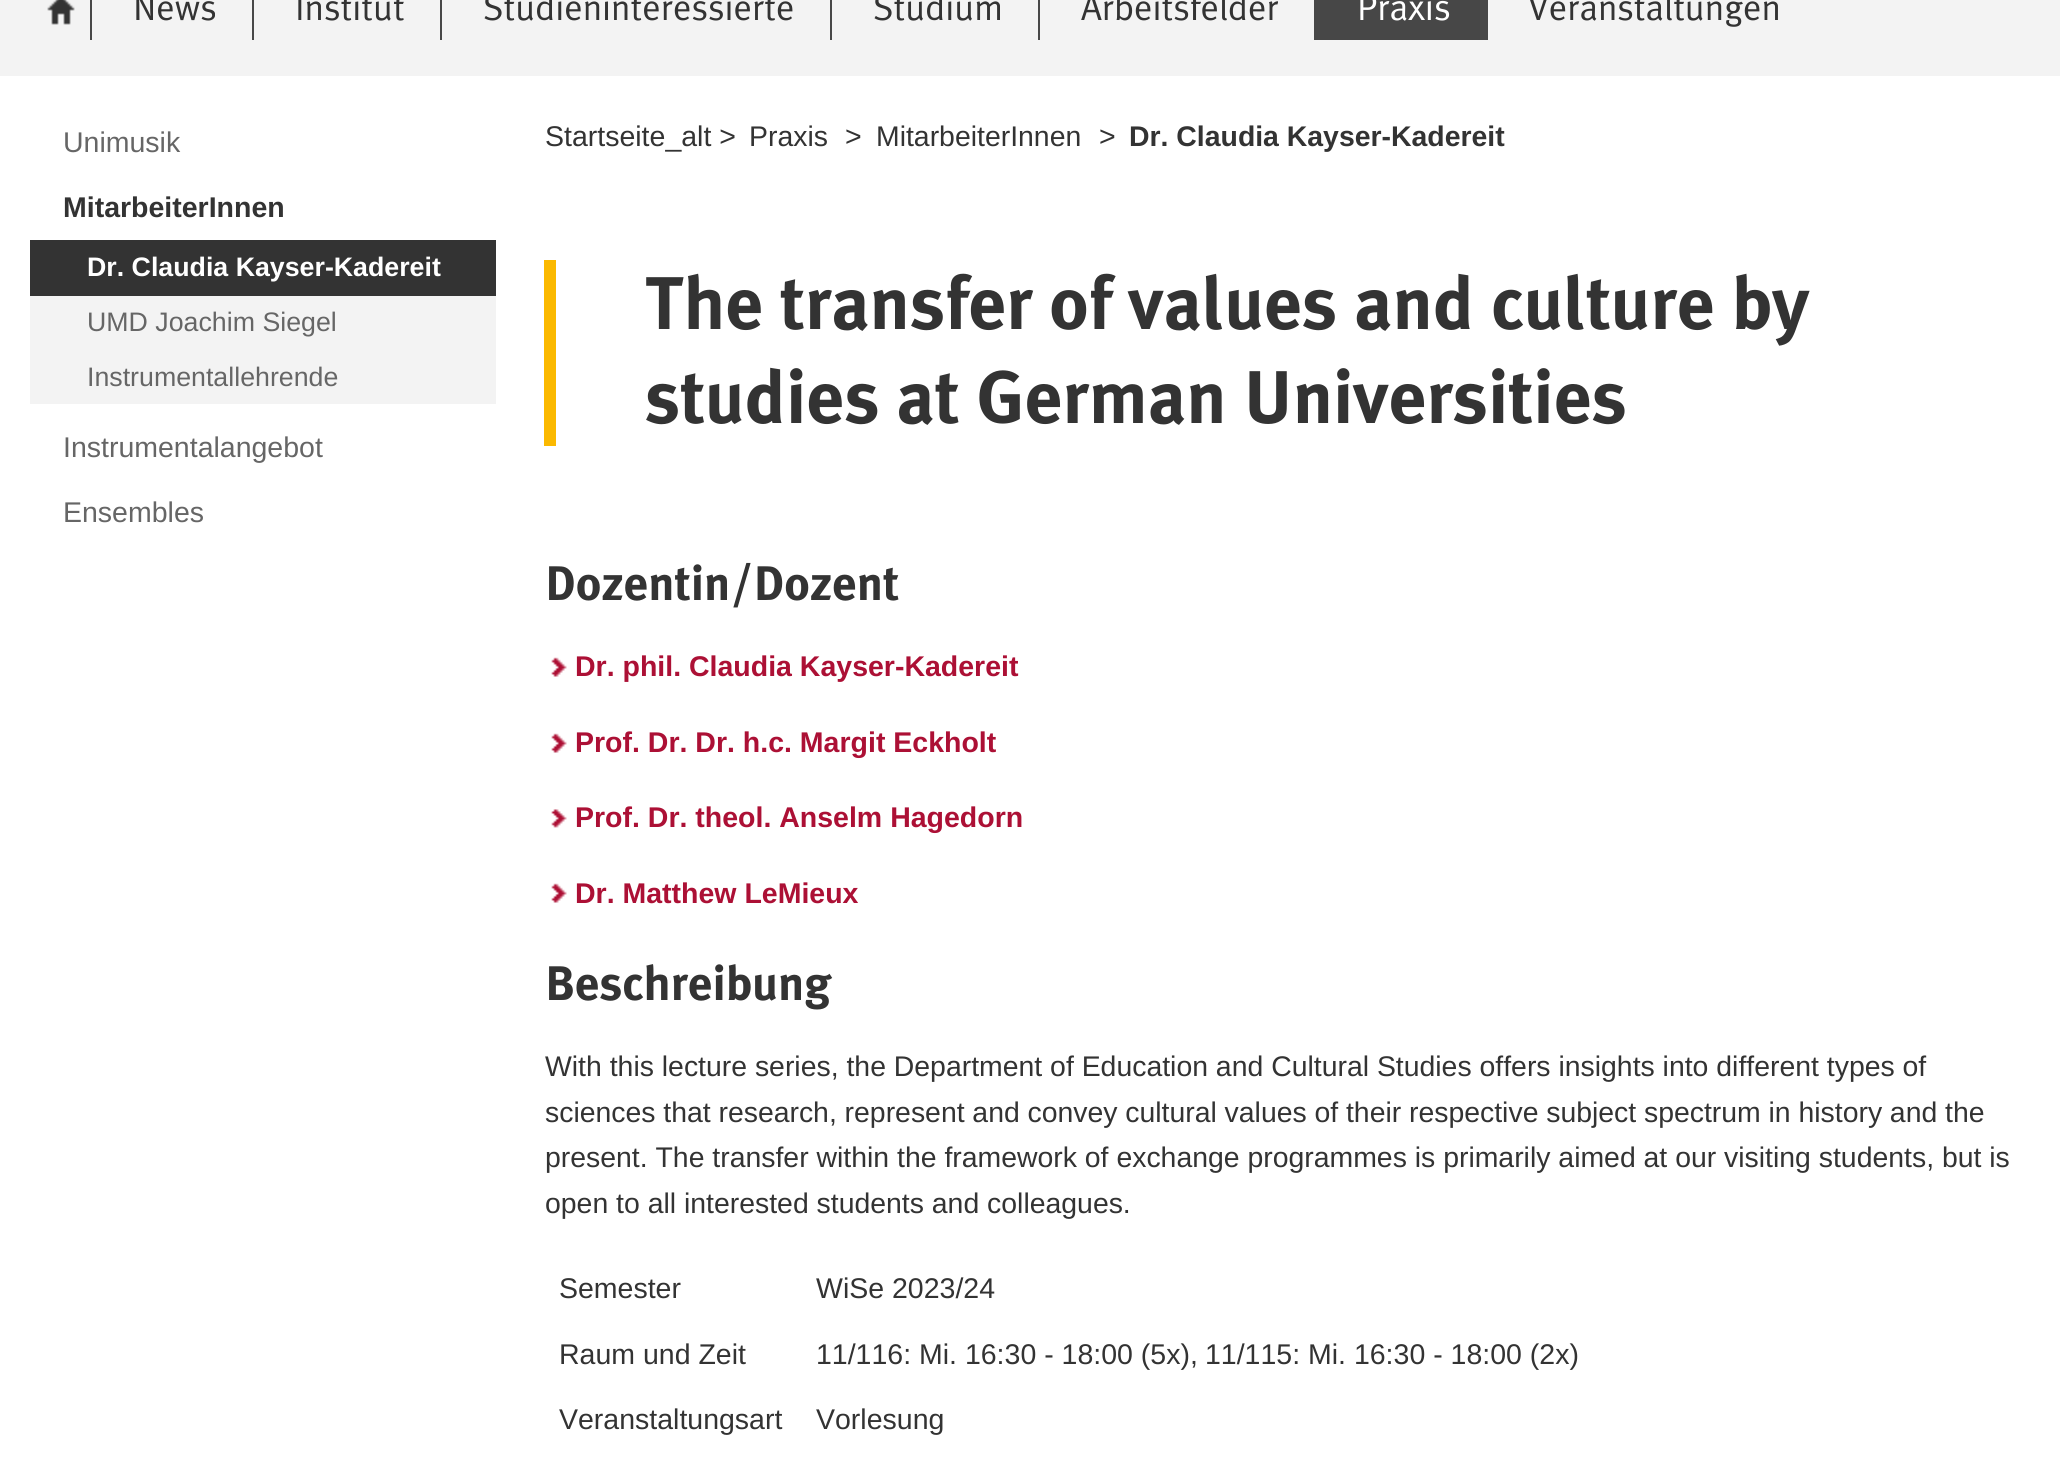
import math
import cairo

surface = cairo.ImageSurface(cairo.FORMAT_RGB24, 2060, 1460)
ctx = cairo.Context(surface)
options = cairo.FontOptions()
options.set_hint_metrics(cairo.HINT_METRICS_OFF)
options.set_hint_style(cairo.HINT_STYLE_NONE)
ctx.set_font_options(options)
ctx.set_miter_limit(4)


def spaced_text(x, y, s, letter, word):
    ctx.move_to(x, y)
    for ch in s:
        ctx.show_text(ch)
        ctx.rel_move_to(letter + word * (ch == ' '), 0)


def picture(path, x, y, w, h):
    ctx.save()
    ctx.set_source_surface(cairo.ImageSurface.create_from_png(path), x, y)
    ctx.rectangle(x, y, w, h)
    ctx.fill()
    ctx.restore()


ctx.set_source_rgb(1, 1, 1)
ctx.paint()
ctx.set_source_rgb(0.953, 0.953, 0.953)
ctx.rectangle(0, 0, 2060, 76)
ctx.fill()
picture("img1.png", 47, 0, 28, 25)
ctx.set_source_rgb(0.278, 0.278, 0.278)
ctx.rectangle(90, 0, 2, 40)
ctx.fill()
ctx.select_font_face("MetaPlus")
ctx.set_font_size(36.5)
ctx.set_source_rgb(0.2, 0.2, 0.2)
ctx.move_to(133, 20)
ctx.show_text("News")
ctx.set_source_rgb(0.278, 0.278, 0.278)
ctx.rectangle(252, 0, 2, 40)
ctx.fill()
ctx.set_source_rgb(0.2, 0.2, 0.2)
ctx.move_to(295, 20)
ctx.show_text("Institut")
ctx.set_source_rgb(0.278, 0.278, 0.278)
ctx.rectangle(440, 0, 2, 40)
ctx.fill()
ctx.set_source_rgb(0.2, 0.2, 0.2)
ctx.move_to(483, 20)
ctx.show_text("Studieninteressierte")
ctx.set_source_rgb(0.278, 0.278, 0.278)
ctx.rectangle(830, 0, 2, 40)
ctx.fill()
ctx.set_source_rgb(0.2, 0.2, 0.2)
ctx.move_to(873, 20)
ctx.show_text("Studium")
ctx.set_source_rgb(0.278, 0.278, 0.278)
ctx.rectangle(1038, 0, 2, 40)
ctx.fill()
ctx.set_source_rgb(0.2, 0.2, 0.2)
ctx.move_to(1081, 20)
ctx.show_text("Arbeitsfelder")
ctx.set_source_rgb(0.278, 0.278, 0.278)
ctx.rectangle(1314, 0, 2, 40)
ctx.fill()
ctx.rectangle(1316, 0, 170, 32)
ctx.fill()
ctx.rectangle(1486, 0, 2, 40)
ctx.fill()
ctx.rectangle(1314, 32, 174, 8)
ctx.fill()
ctx.set_font_size(37)
ctx.set_source_rgb(1, 1, 1)
ctx.move_to(1357, 20)
ctx.show_text("Praxis")
ctx.set_font_size(36.5)
ctx.set_source_rgb(0.2, 0.2, 0.2)
ctx.move_to(1528, 20)
ctx.show_text("Veranstaltungen")
ctx.select_font_face("Liberation Sans")
ctx.set_font_size(28.5)
ctx.set_source_rgb(0.4, 0.4, 0.4)
ctx.move_to(63, 152)
ctx.show_text("Unimusik")
ctx.select_font_face("Liberation Sans", cairo.FONT_SLANT_NORMAL, cairo.FONT_WEIGHT_BOLD)
ctx.set_source_rgb(0.2, 0.2, 0.2)
ctx.move_to(63, 217)
ctx.show_text("MitarbeiterInnen")
ctx.set_source_rgb(0.953, 0.953, 0.953)
ctx.rectangle(30, 296, 466, 108)
ctx.fill()
ctx.set_source_rgb(0.2, 0.2, 0.2)
ctx.rectangle(30, 240, 466, 56)
ctx.fill()
ctx.set_font_size(26.75)
ctx.set_source_rgb(1, 1, 1)
ctx.move_to(87, 276)
ctx.show_text("Dr. Claudia Kayser-Kadereit")
ctx.select_font_face("Liberation Sans")
ctx.set_source_rgb(0.4, 0.4, 0.4)
ctx.move_to(87, 331)
ctx.show_text("UMD Joachim Siegel")
ctx.move_to(87, 386)
ctx.show_text("Instrumentallehrende")
ctx.set_font_size(28.5)
ctx.move_to(63, 457)
ctx.show_text("Instrumentalangebot")
ctx.move_to(63, 522)
ctx.show_text("Ensembles")
ctx.set_source_rgb(0.2, 0.2, 0.2)
ctx.move_to(545, 146)
ctx.show_text("Startseite_alt >")
ctx.set_font_size(28.4)
ctx.move_to(749, 146)
ctx.show_text("Praxis")
ctx.set_font_size(28.5)
ctx.move_to(845, 146)
ctx.show_text(">")
ctx.set_font_size(28.4)
ctx.move_to(876, 146)
ctx.show_text("MitarbeiterInnen")
ctx.set_font_size(28.5)
ctx.move_to(1099, 146)
ctx.show_text(">")
ctx.select_font_face("Liberation Sans", cairo.FONT_SLANT_NORMAL, cairo.FONT_WEIGHT_BOLD)
ctx.set_font_size(28.4)
ctx.move_to(1129, 146)
ctx.show_text("Dr. Claudia Kayser-Kadereit")
ctx.set_source_rgb(0.984, 0.725, 0)
ctx.rectangle(544, 260, 12, 186)
ctx.fill()
ctx.select_font_face("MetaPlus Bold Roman", cairo.FONT_SLANT_NORMAL, cairo.FONT_WEIGHT_BOLD)
ctx.set_font_size(74.6)
ctx.set_source_rgb(0.2, 0.2, 0.2)
ctx.move_to(645, 329)
ctx.show_text("The transfer of values and culture by")
ctx.move_to(645, 423)
ctx.show_text("studies at German Universities")
ctx.set_font_size(48.5)
ctx.move_to(545, 600)
ctx.show_text("Dozentin/Dozent")
picture("img2.png", 551, 657, 16, 20)
ctx.select_font_face("Liberation Sans", cairo.FONT_SLANT_NORMAL, cairo.FONT_WEIGHT_BOLD)
ctx.set_font_size(28.5)
ctx.set_source_rgb(0.675, 0.063, 0.208)
ctx.move_to(575, 676)
ctx.show_text("Dr. phil. Claudia Kayser-Kadereit")
picture("img2.png", 551, 733, 16, 20)
ctx.move_to(575, 752)
ctx.show_text("Prof. Dr. Dr. h.c. Margit Eckholt")
picture("img3.png", 551, 809, 16, 19)
ctx.move_to(575, 827)
ctx.show_text("Prof. Dr. theol. Anselm Hagedorn")
picture("img2.png", 551, 883, 16, 20)
ctx.move_to(575, 903)
ctx.show_text("Dr. Matthew LeMieux")
ctx.select_font_face("MetaPlus Bold Roman", cairo.FONT_SLANT_NORMAL, cairo.FONT_WEIGHT_BOLD)
ctx.set_font_size(48.5)
ctx.set_source_rgb(0.2, 0.2, 0.2)
ctx.move_to(545, 1000)
ctx.show_text("Beschreibung")
ctx.select_font_face("Liberation Sans")
ctx.set_font_size(28.4)
ctx.move_to(545, 1076)
ctx.show_text("With this lecture series, the Department of Education and Cultural Studies offers insights into different types of")
spaced_text(545, 1122, "sciences that research, represent and convey cultural values of their respective subject spectrum in history and the", 0, -0.1)
ctx.move_to(545, 1167)
ctx.show_text("present. The transfer within the framework of exchange programmes is primarily aimed at our visiting students, but is")
ctx.move_to(545, 1213)
ctx.show_text("open to all interested students and colleagues.")
ctx.set_font_size(28.5)
ctx.move_to(559, 1298)
ctx.show_text("Semester")
ctx.move_to(816, 1298)
ctx.show_text("WiSe 2023/24")
ctx.move_to(559, 1364)
ctx.show_text("Raum und Zeit")
ctx.move_to(816, 1364)
ctx.show_text("11/116: Mi. 16:30 - 18:00 (5x),")
ctx.move_to(1205, 1364)
ctx.show_text("11/115: Mi. 16:30 - 18:00 (2x)")
ctx.move_to(559, 1429)
ctx.show_text("Veranstaltungsart")
ctx.move_to(816, 1429)
ctx.show_text("Vorlesung")
surface.write_to_png("page.png")
